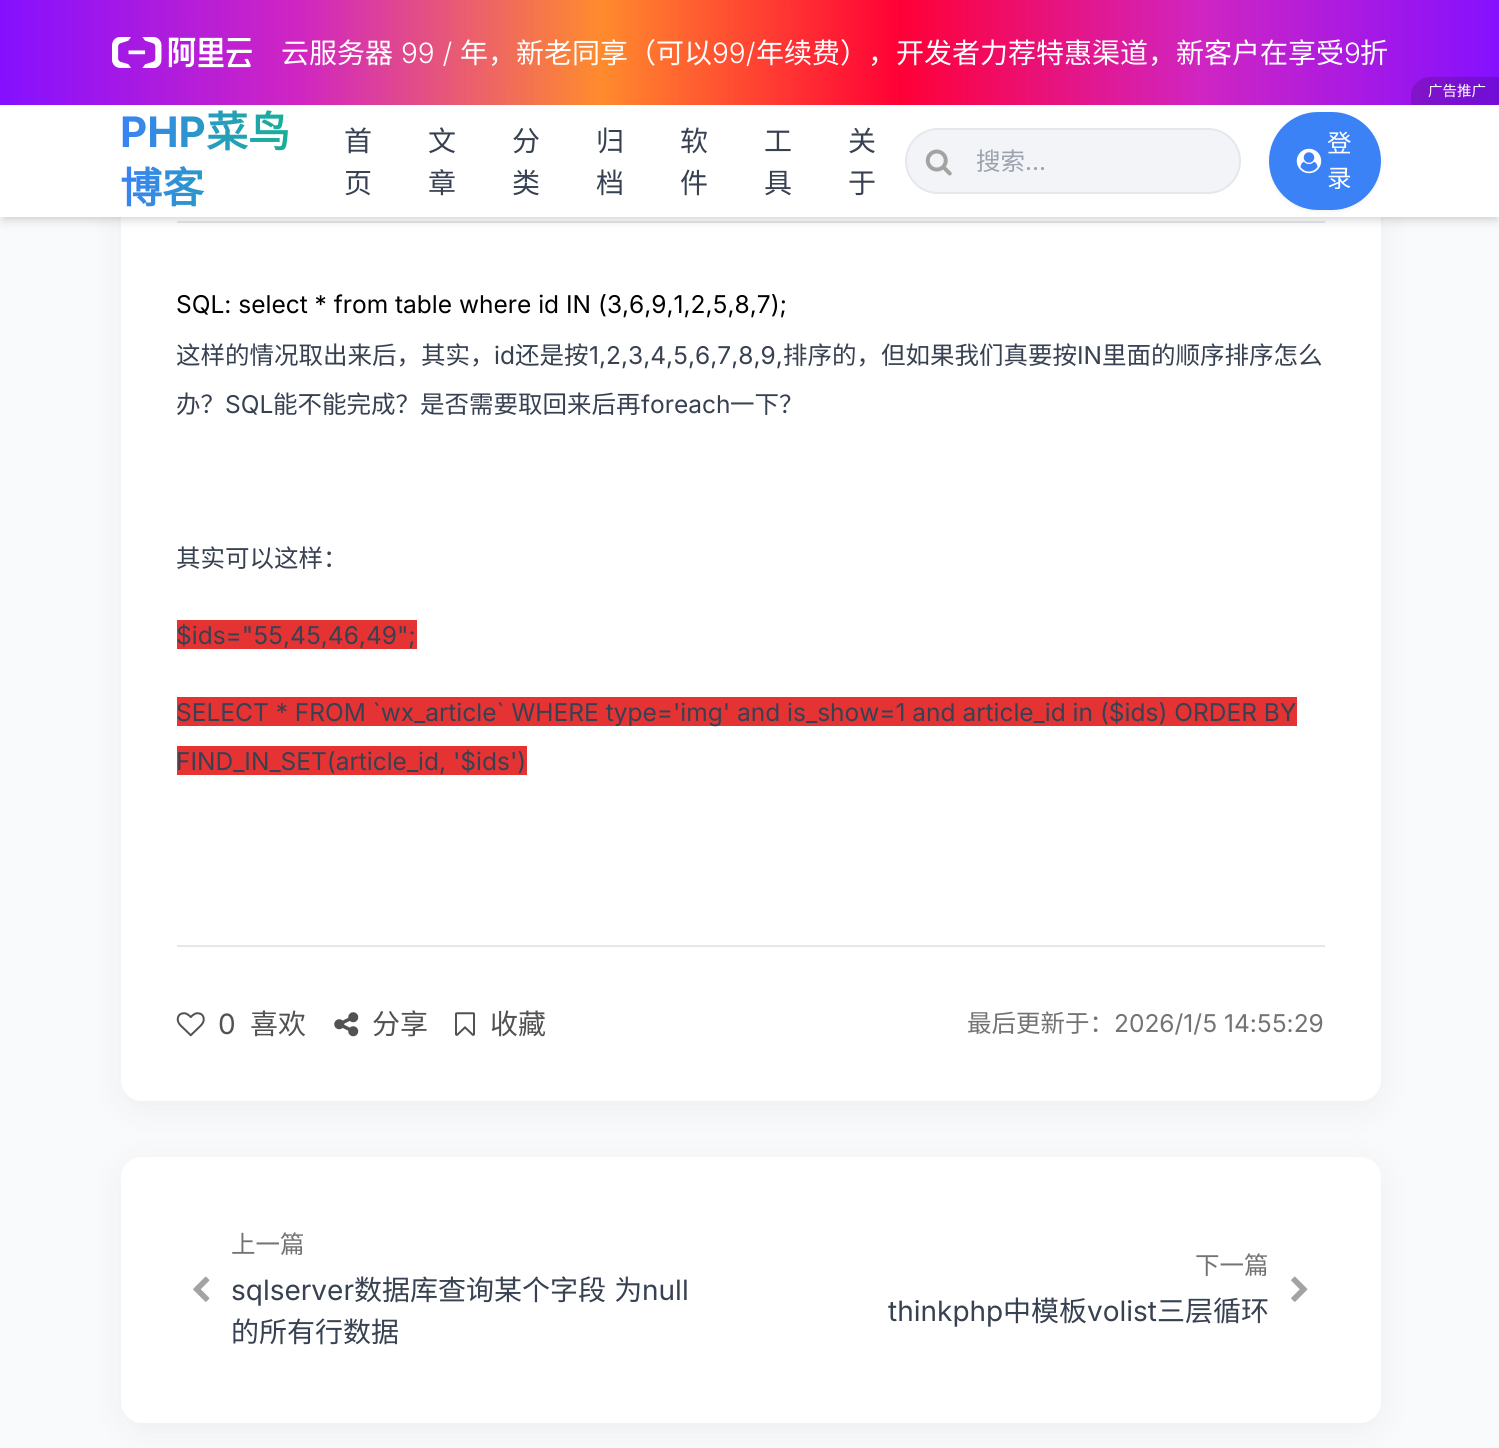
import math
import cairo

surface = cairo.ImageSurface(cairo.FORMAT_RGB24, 1499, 1448)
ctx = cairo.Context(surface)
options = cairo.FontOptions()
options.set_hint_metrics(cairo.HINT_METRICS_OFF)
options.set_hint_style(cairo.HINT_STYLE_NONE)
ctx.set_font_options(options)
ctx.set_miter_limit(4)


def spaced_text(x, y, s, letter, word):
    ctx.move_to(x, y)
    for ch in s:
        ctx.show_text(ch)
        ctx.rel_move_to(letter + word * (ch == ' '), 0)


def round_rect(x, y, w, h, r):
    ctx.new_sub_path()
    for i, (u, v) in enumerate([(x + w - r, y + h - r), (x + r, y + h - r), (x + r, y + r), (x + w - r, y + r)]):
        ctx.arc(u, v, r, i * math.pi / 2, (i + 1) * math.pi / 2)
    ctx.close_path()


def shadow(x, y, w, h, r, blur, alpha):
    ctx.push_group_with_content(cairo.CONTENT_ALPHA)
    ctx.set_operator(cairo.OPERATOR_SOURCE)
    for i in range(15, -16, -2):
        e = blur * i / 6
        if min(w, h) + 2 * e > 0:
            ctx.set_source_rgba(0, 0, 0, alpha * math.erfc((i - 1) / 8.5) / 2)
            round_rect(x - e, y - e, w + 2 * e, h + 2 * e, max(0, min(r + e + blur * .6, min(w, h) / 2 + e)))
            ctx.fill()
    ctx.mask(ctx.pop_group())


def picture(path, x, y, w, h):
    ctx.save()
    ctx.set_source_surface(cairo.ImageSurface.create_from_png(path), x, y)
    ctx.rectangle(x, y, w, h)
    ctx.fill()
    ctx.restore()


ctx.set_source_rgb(0.976, 0.98, 0.984)
ctx.paint()
ctx.set_source_rgb(0, 0, 0)
shadow(121, -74, 1260, 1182, 21, 17.5, 0.05)
ctx.set_source_rgb(1, 1, 1)
round_rect(121, -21, 1260, 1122, 21)
ctx.fill()
ctx.set_source_rgb(0.898, 0.906, 0.922)
ctx.rectangle(177, 221, 1148, 2)
ctx.fill()
ctx.set_source_rgb(0, 0, 0)
shadow(4, 112, 1492, 105, 0, 3.5, 0.1)
shadow(2, 114, 1496, 108, 0, 5, 0.1)
gradient = cairo.LinearGradient(0, 53, 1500, 52)
gradient.add_color_stop_rgba(0, 0.522, 0.063, 1, 1)
gradient.add_color_stop_rgba(0.2, 0.816, 0.145, 0.761, 1)
gradient.add_color_stop_rgba(0.4, 1, 0.545, 0.176, 1)
gradient.add_color_stop_rgba(0.6, 1, 0, 0.212, 1)
gradient.add_color_stop_rgba(0.8, 0.816, 0.145, 0.761, 1)
gradient.add_color_stop_rgba(1, 0.522, 0.063, 1, 1)
ctx.set_source(gradient)
ctx.rectangle(0, 0, 1499, 105)
ctx.fill()
picture("img1.png", 112, 37, 140, 31)
ctx.select_font_face("Noto Sans CJK SC")
ctx.set_font_size(28)
ctx.set_source_rgb(1, 1, 1)
ctx.move_to(281, 63)
ctx.show_text("云服务器")
ctx.select_font_face("Inter Light")
ctx.move_to(401, 63)
ctx.show_text("99 /")
ctx.select_font_face("Noto Sans CJK SC")
ctx.move_to(460, 63)
ctx.show_text("年，新老同享（可以")
ctx.select_font_face("Inter Light")
ctx.move_to(712, 63)
ctx.show_text("99/")
ctx.select_font_face("Noto Sans CJK SC")
ctx.move_to(756, 63)
ctx.show_text("年续费），开发者力荐特惠渠道，新客户在享受")
ctx.select_font_face("Inter Light")
ctx.move_to(1344, 63)
ctx.show_text("9")
ctx.select_font_face("Noto Sans CJK SC")
ctx.move_to(1360, 63)
ctx.show_text("折")
ctx.set_source_rgba(0, 0, 0, 0.16)
ctx.new_path()
ctx.move_to(1430, 77)
ctx.line_to(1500, 77)
ctx.line_to(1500, 100)
ctx.curve_to(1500, 103, 1498, 105, 1495, 105)
ctx.line_to(1411, 105)
ctx.line_to(1411, 96)
ctx.curve_to(1411, 85.5, 1419.5, 77, 1430, 77)
ctx.close_path()
ctx.fill()
ctx.set_font_size(14.5)
ctx.set_source_rgb(1, 1, 1)
ctx.move_to(1428, 96)
ctx.show_text("广告推广")
ctx.rectangle(0, 105, 1499, 112)
ctx.fill()
ctx.select_font_face("Inter", cairo.FONT_SLANT_NORMAL, cairo.FONT_WEIGHT_BOLD)
ctx.set_font_size(42)
gradient = cairo.LinearGradient(120, 161, 323, 161)
gradient.add_color_stop_rgba(0, 0.231, 0.51, 0.965, 1)
gradient.add_color_stop_rgba(1, 0.063, 0.725, 0.506, 1)
ctx.set_source(gradient)
ctx.move_to(120, 147)
ctx.show_text("PHP")
ctx.select_font_face("Noto Sans CJK SC", cairo.FONT_SLANT_NORMAL, cairo.FONT_WEIGHT_BOLD)
ctx.move_to(206, 147)
ctx.show_text("菜鸟")
ctx.move_to(120, 203)
ctx.show_text("博客")
ctx.select_font_face("Noto Sans CJK SC")
ctx.set_font_size(28)
ctx.set_source_rgb(0.216, 0.255, 0.318)
ctx.move_to(344, 151)
ctx.show_text("首")
ctx.move_to(344, 193)
ctx.show_text("页")
ctx.move_to(428, 151)
ctx.show_text("文")
ctx.move_to(428, 193)
ctx.show_text("章")
ctx.move_to(512, 151)
ctx.show_text("分")
ctx.move_to(512, 193)
ctx.show_text("类")
ctx.move_to(596, 151)
ctx.show_text("归")
ctx.move_to(596, 193)
ctx.show_text("档")
ctx.move_to(680, 151)
ctx.show_text("软")
ctx.move_to(680, 193)
ctx.show_text("件")
ctx.move_to(764, 151)
ctx.show_text("工")
ctx.move_to(764, 193)
ctx.show_text("具")
ctx.move_to(848, 151)
ctx.show_text("关")
ctx.move_to(848, 193)
ctx.show_text("于")
ctx.set_source_rgb(0.953, 0.957, 0.965)
round_rect(906, 129, 334, 64, 32)
ctx.fill_preserve()
ctx.set_source_rgb(0.898, 0.906, 0.922)
ctx.stroke()
picture("img2.png", 925, 149, 27, 27)
ctx.save()
ctx.rectangle(977, 142, 234, 35)
ctx.clip()
ctx.set_font_size(24.5)
ctx.set_source_rgb(0.612, 0.639, 0.686)
ctx.move_to(976, 170)
ctx.show_text("搜索")
ctx.restore()
ctx.select_font_face("Inter")
ctx.set_font_size(24.5)
ctx.set_source_rgb(0.612, 0.639, 0.686)
ctx.move_to(1025, 170)
ctx.show_text("...")
ctx.set_source_rgb(0, 0, 0)
shadow(1269, 114, 112, 98, 49, 2, 0.05)
ctx.set_source_rgb(0.231, 0.51, 0.965)
round_rect(1269, 112, 112, 98, 49)
ctx.fill()
ctx.select_font_face("Noto Sans CJK SC")
ctx.set_source_rgb(1, 1, 1)
ctx.move_to(1327, 152)
ctx.show_text("登")
picture("img3.png", 1296, 148, 26, 26)
ctx.move_to(1327, 187)
ctx.show_text("录")
ctx.select_font_face("Inter")
ctx.set_source_rgb(0, 0, 0)
ctx.move_to(176, 313)
ctx.show_text("SQL: select * from table where id IN (3,6,9,1,2,5,8,7);")
ctx.select_font_face("Noto Sans CJK SC")
ctx.set_source_rgb(0.216, 0.255, 0.318)
ctx.move_to(176, 364)
ctx.show_text("这样的情况取出来后，其实，")
ctx.select_font_face("Inter")
ctx.move_to(494, 364)
ctx.show_text("id")
ctx.select_font_face("Noto Sans CJK SC")
ctx.move_to(515, 364)
ctx.show_text("还是按")
ctx.select_font_face("Inter")
ctx.move_to(589, 364)
ctx.show_text("1,2,3,4,5,6,7,8,9,")
ctx.select_font_face("Noto Sans CJK SC")
ctx.move_to(783, 364)
ctx.show_text("排序的，但如果我们真要按")
ctx.select_font_face("Inter")
ctx.move_to(1077, 364)
ctx.show_text("IN")
ctx.select_font_face("Noto Sans CJK SC")
ctx.move_to(1102, 364)
ctx.show_text("里面的顺序排序怎么")
ctx.move_to(176, 413)
ctx.show_text("办？")
ctx.select_font_face("Inter")
ctx.move_to(225, 413)
ctx.show_text("SQL")
ctx.select_font_face("Noto Sans CJK SC")
ctx.move_to(273, 413)
ctx.show_text("能不能完成？是否需要取回来后再")
ctx.select_font_face("Inter")
ctx.move_to(641, 413)
ctx.show_text("foreach")
ctx.select_font_face("Noto Sans CJK SC")
ctx.move_to(730, 413)
ctx.show_text("一下？")
ctx.move_to(176, 567)
ctx.show_text("其实可以这样：")
ctx.set_source_rgb(0.898, 0.2, 0.2)
ctx.rectangle(177, 620, 240, 29)
ctx.fill()
ctx.select_font_face("Inter")
ctx.set_source_rgb(0.216, 0.255, 0.318)
ctx.move_to(176, 644)
ctx.show_text("$ids=\"55,45,46,49\";")
ctx.set_source_rgb(0.898, 0.2, 0.2)
ctx.rectangle(177, 697, 1120, 29)
ctx.fill()
ctx.set_source_rgb(0.216, 0.255, 0.318)
ctx.move_to(176, 721)
ctx.show_text("SELECT * FROM `wx_article` WHERE type='img' and is_show=1 and article_id in ($ids) ORDER BY")
ctx.set_source_rgb(0.898, 0.2, 0.2)
ctx.rectangle(177, 746, 350, 29)
ctx.fill()
ctx.set_source_rgb(0.216, 0.255, 0.318)
ctx.move_to(176, 770)
ctx.show_text("FIND_IN_SET(article_id, '$ids')")
ctx.set_source_rgb(0.898, 0.906, 0.922)
ctx.rectangle(177, 945, 1148, 2)
ctx.fill()
picture("img4.png", 176, 1012, 29, 25)
ctx.set_font_size(28)
ctx.set_source_rgb(0.322, 0.322, 0.322)
ctx.move_to(218, 1034)
ctx.show_text("0")
ctx.select_font_face("Noto Sans CJK SC")
ctx.move_to(250, 1034)
ctx.show_text("喜欢")
picture("img5.png", 334, 1012, 25, 25)
ctx.move_to(372, 1034)
ctx.show_text("分享")
picture("img6.png", 455, 1012, 20, 24)
ctx.move_to(490, 1034)
ctx.show_text("收藏")
ctx.set_font_size(24.5)
ctx.set_source_rgb(0.451, 0.451, 0.451)
ctx.move_to(967, 1032)
ctx.show_text("最后更新于：")
ctx.select_font_face("Inter")
ctx.move_to(1114, 1032)
ctx.show_text("2026/1/5 14:55:29")
ctx.set_source_rgb(0, 0, 0)
shadow(121, 1164, 1260, 266, 21, 17.5, 0.05)
ctx.set_source_rgb(1, 1, 1)
round_rect(121, 1157, 1260, 266, 21)
ctx.fill()
picture("img7.png", 193, 1276, 17, 26)
ctx.select_font_face("Noto Sans CJK SC")
ctx.set_source_rgb(0.451, 0.451, 0.451)
ctx.move_to(231, 1253)
ctx.show_text("上一篇")
ctx.select_font_face("Inter")
ctx.set_font_size(28)
ctx.set_source_rgb(0.216, 0.255, 0.318)
ctx.move_to(231, 1300)
ctx.show_text("sqlserver")
ctx.select_font_face("Noto Sans CJK SC")
spaced_text(354, 1300, "数据库查询某个字段 为", 0, 2)
ctx.select_font_face("Inter")
ctx.move_to(642, 1300)
ctx.show_text("null")
ctx.select_font_face("Noto Sans CJK SC")
ctx.move_to(231, 1342)
ctx.show_text("的所有行数据")
ctx.set_font_size(24.5)
ctx.set_source_rgb(0.451, 0.451, 0.451)
ctx.move_to(1195, 1274)
ctx.show_text("下一篇")
ctx.select_font_face("Inter")
ctx.set_font_size(28)
ctx.set_source_rgb(0.216, 0.255, 0.318)
ctx.move_to(888, 1321)
ctx.show_text("thinkphp")
ctx.select_font_face("Noto Sans CJK SC")
ctx.move_to(1003, 1321)
ctx.show_text("中模板")
ctx.select_font_face("Inter")
ctx.move_to(1087, 1321)
ctx.show_text("volist")
ctx.select_font_face("Noto Sans CJK SC")
ctx.move_to(1157, 1321)
ctx.show_text("三层循环")
picture("img8.png", 1291, 1276, 17, 26)
surface.write_to_png("page.png")
